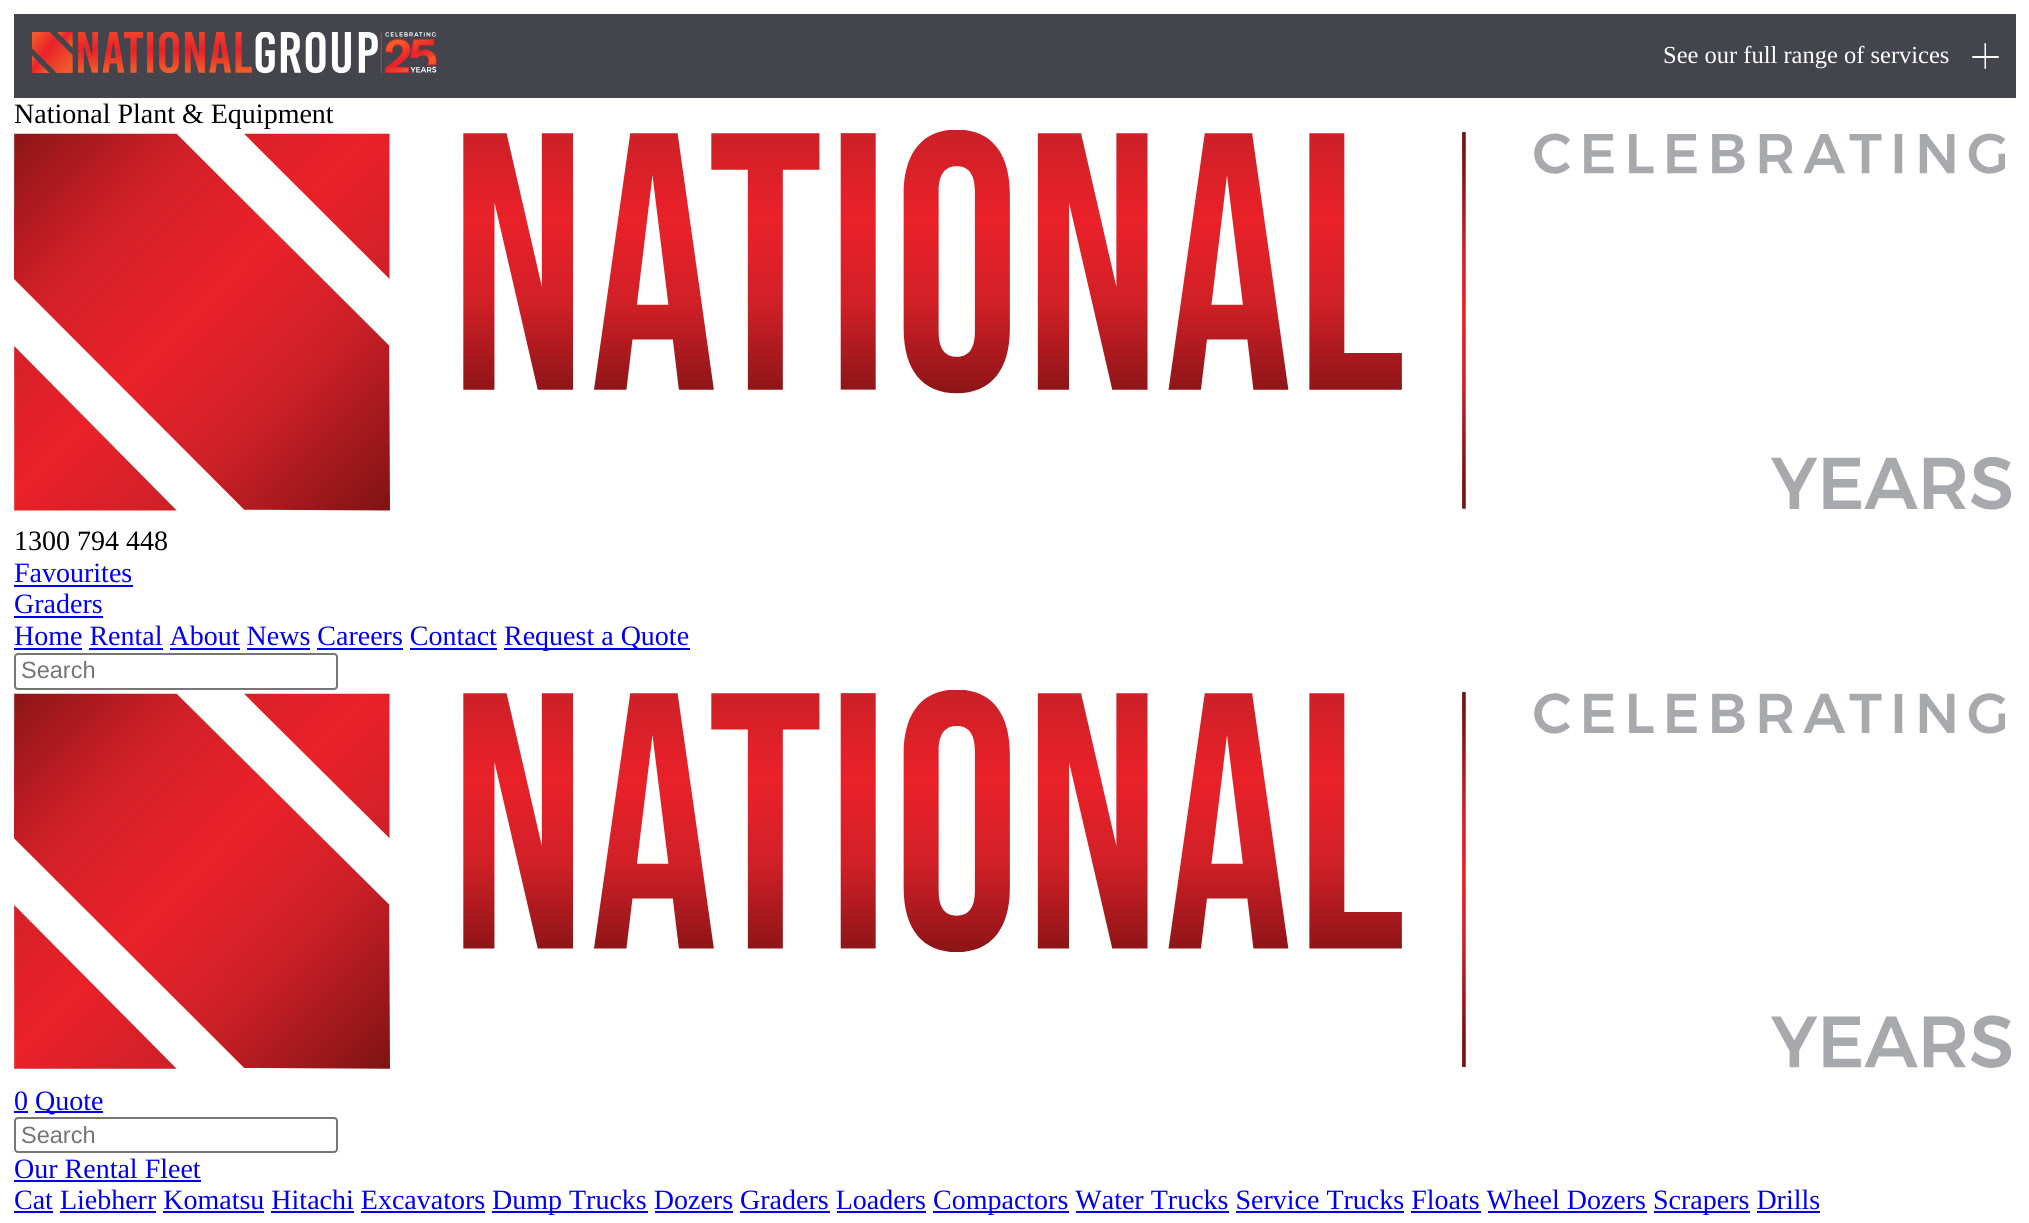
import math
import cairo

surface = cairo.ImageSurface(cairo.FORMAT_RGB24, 2029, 1223)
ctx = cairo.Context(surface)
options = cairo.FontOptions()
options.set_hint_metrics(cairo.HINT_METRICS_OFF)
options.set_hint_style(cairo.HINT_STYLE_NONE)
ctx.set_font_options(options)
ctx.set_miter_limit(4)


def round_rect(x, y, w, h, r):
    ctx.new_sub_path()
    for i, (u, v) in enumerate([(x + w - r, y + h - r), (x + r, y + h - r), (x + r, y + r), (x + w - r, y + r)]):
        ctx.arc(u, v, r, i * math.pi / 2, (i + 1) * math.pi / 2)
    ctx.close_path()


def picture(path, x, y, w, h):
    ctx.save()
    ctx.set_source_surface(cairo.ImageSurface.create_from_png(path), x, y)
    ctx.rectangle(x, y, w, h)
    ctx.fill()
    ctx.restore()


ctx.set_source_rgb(1, 1, 1)
ctx.paint()
ctx.set_source_rgb(0.267, 0.271, 0.298)
ctx.rectangle(14, 14, 2002, 84)
ctx.fill()
picture("img1.png", 32, 32, 405, 42)
ctx.select_font_face("Liberation Serif")
ctx.set_font_size(24.5)
ctx.set_source_rgb(1, 1, 1)
ctx.move_to(1663, 63)
ctx.show_text("See our full range of services")
ctx.new_path()
ctx.move_to(1986, 44)
ctx.line_to(1986, 68.5)
ctx.line_to(1985.5, 69)
ctx.curve_to(1985.5, 69, 1985, 69, 1984.5, 68.5)
ctx.line_to(1984.5, 43.5)
ctx.curve_to(1985, 42.5, 1986, 43, 1986, 44)
ctx.close_path()
ctx.fill()
round_rect(1972, 56, 27, 2, 1)
ctx.fill()
ctx.set_font_size(28)
ctx.set_source_rgb(0, 0, 0)
ctx.move_to(14, 123)
ctx.show_text("National Plant & Equipment")
picture("img2.png", 14, 130, 1998, 381)
ctx.move_to(14, 550)
ctx.show_text("1300 794 448")
ctx.set_source_rgb(0, 0, 0.933)
ctx.move_to(14, 582)
ctx.show_text("Favourites")
ctx.rectangle(14, 585, 119, 2)
ctx.fill()
ctx.move_to(14, 613)
ctx.show_text("Graders")
ctx.rectangle(14, 616, 89, 2)
ctx.fill()
ctx.move_to(14, 645)
ctx.show_text("Home Rental About News Careers Contact")
ctx.rectangle(14, 648, 68, 2)
ctx.fill()
ctx.rectangle(504, 648, 186, 2)
ctx.fill()
ctx.move_to(504, 645)
ctx.show_text("Request a Quote")
ctx.rectangle(89, 648, 74, 2)
ctx.fill()
ctx.rectangle(170, 648, 70, 2)
ctx.fill()
ctx.rectangle(247, 648, 63, 2)
ctx.fill()
ctx.rectangle(317, 648, 86, 2)
ctx.fill()
ctx.rectangle(410, 648, 87, 2)
ctx.fill()
round_rect(15, 654, 322, 35, 3)
ctx.set_source_rgb(0.463, 0.463, 0.463)
ctx.stroke()
ctx.select_font_face("Liberation Sans")
ctx.set_font_size(23.5)
ctx.set_source_rgb(0.459, 0.459, 0.459)
ctx.move_to(21, 678)
ctx.show_text("Search")
picture("img3.png", 14, 690, 1998, 379)
ctx.select_font_face("Liberation Serif")
ctx.set_font_size(28)
ctx.set_source_rgb(0, 0, 0.933)
ctx.move_to(14, 1110)
ctx.show_text("0")
ctx.rectangle(14, 1111, 14, 2)
ctx.fill()
ctx.rectangle(35, 1111, 68, 2)
ctx.fill()
ctx.move_to(35, 1110)
ctx.show_text("Quote")
round_rect(15, 1118, 322, 34, 3)
ctx.set_source_rgb(0.463, 0.463, 0.463)
ctx.stroke()
ctx.select_font_face("Liberation Sans")
ctx.set_font_size(23.5)
ctx.set_source_rgb(0.459, 0.459, 0.459)
ctx.move_to(21, 1143)
ctx.show_text("Search")
ctx.select_font_face("Liberation Serif")
ctx.set_font_size(28)
ctx.set_source_rgb(0, 0, 0.933)
ctx.move_to(14, 1178)
ctx.show_text("Our Rental Fleet")
ctx.rectangle(14, 1180, 187, 2)
ctx.fill()
ctx.move_to(14, 1209)
ctx.show_text("Cat Liebherr Komatsu Hitachi Excavators")
ctx.rectangle(14, 1211, 39, 2)
ctx.fill()
ctx.rectangle(492, 1211, 156, 2)
ctx.fill()
ctx.move_to(492, 1209)
ctx.show_text("Dump Trucks Dozers Graders Loaders")
ctx.rectangle(933, 1211, 136, 2)
ctx.fill()
ctx.move_to(933, 1209)
ctx.show_text("Compactors Water Trucks Service Trucks Floats Wheel Dozers")
ctx.rectangle(1654, 1211, 96, 2)
ctx.fill()
ctx.move_to(1653, 1209)
ctx.show_text("Scrapers Drills")
ctx.rectangle(60, 1211, 96, 2)
ctx.fill()
ctx.rectangle(163, 1211, 101, 2)
ctx.fill()
ctx.rectangle(271, 1211, 83, 2)
ctx.fill()
ctx.rectangle(361, 1211, 124, 2)
ctx.fill()
ctx.rectangle(655, 1211, 78, 2)
ctx.fill()
ctx.rectangle(740, 1211, 90, 2)
ctx.fill()
ctx.rectangle(837, 1211, 89, 2)
ctx.fill()
ctx.rectangle(1076, 1211, 153, 2)
ctx.fill()
ctx.rectangle(1236, 1211, 168, 2)
ctx.fill()
ctx.rectangle(1411, 1211, 70, 2)
ctx.fill()
ctx.rectangle(1488, 1211, 159, 2)
ctx.fill()
ctx.rectangle(1757, 1211, 63, 2)
ctx.fill()
surface.write_to_png("page.png")
